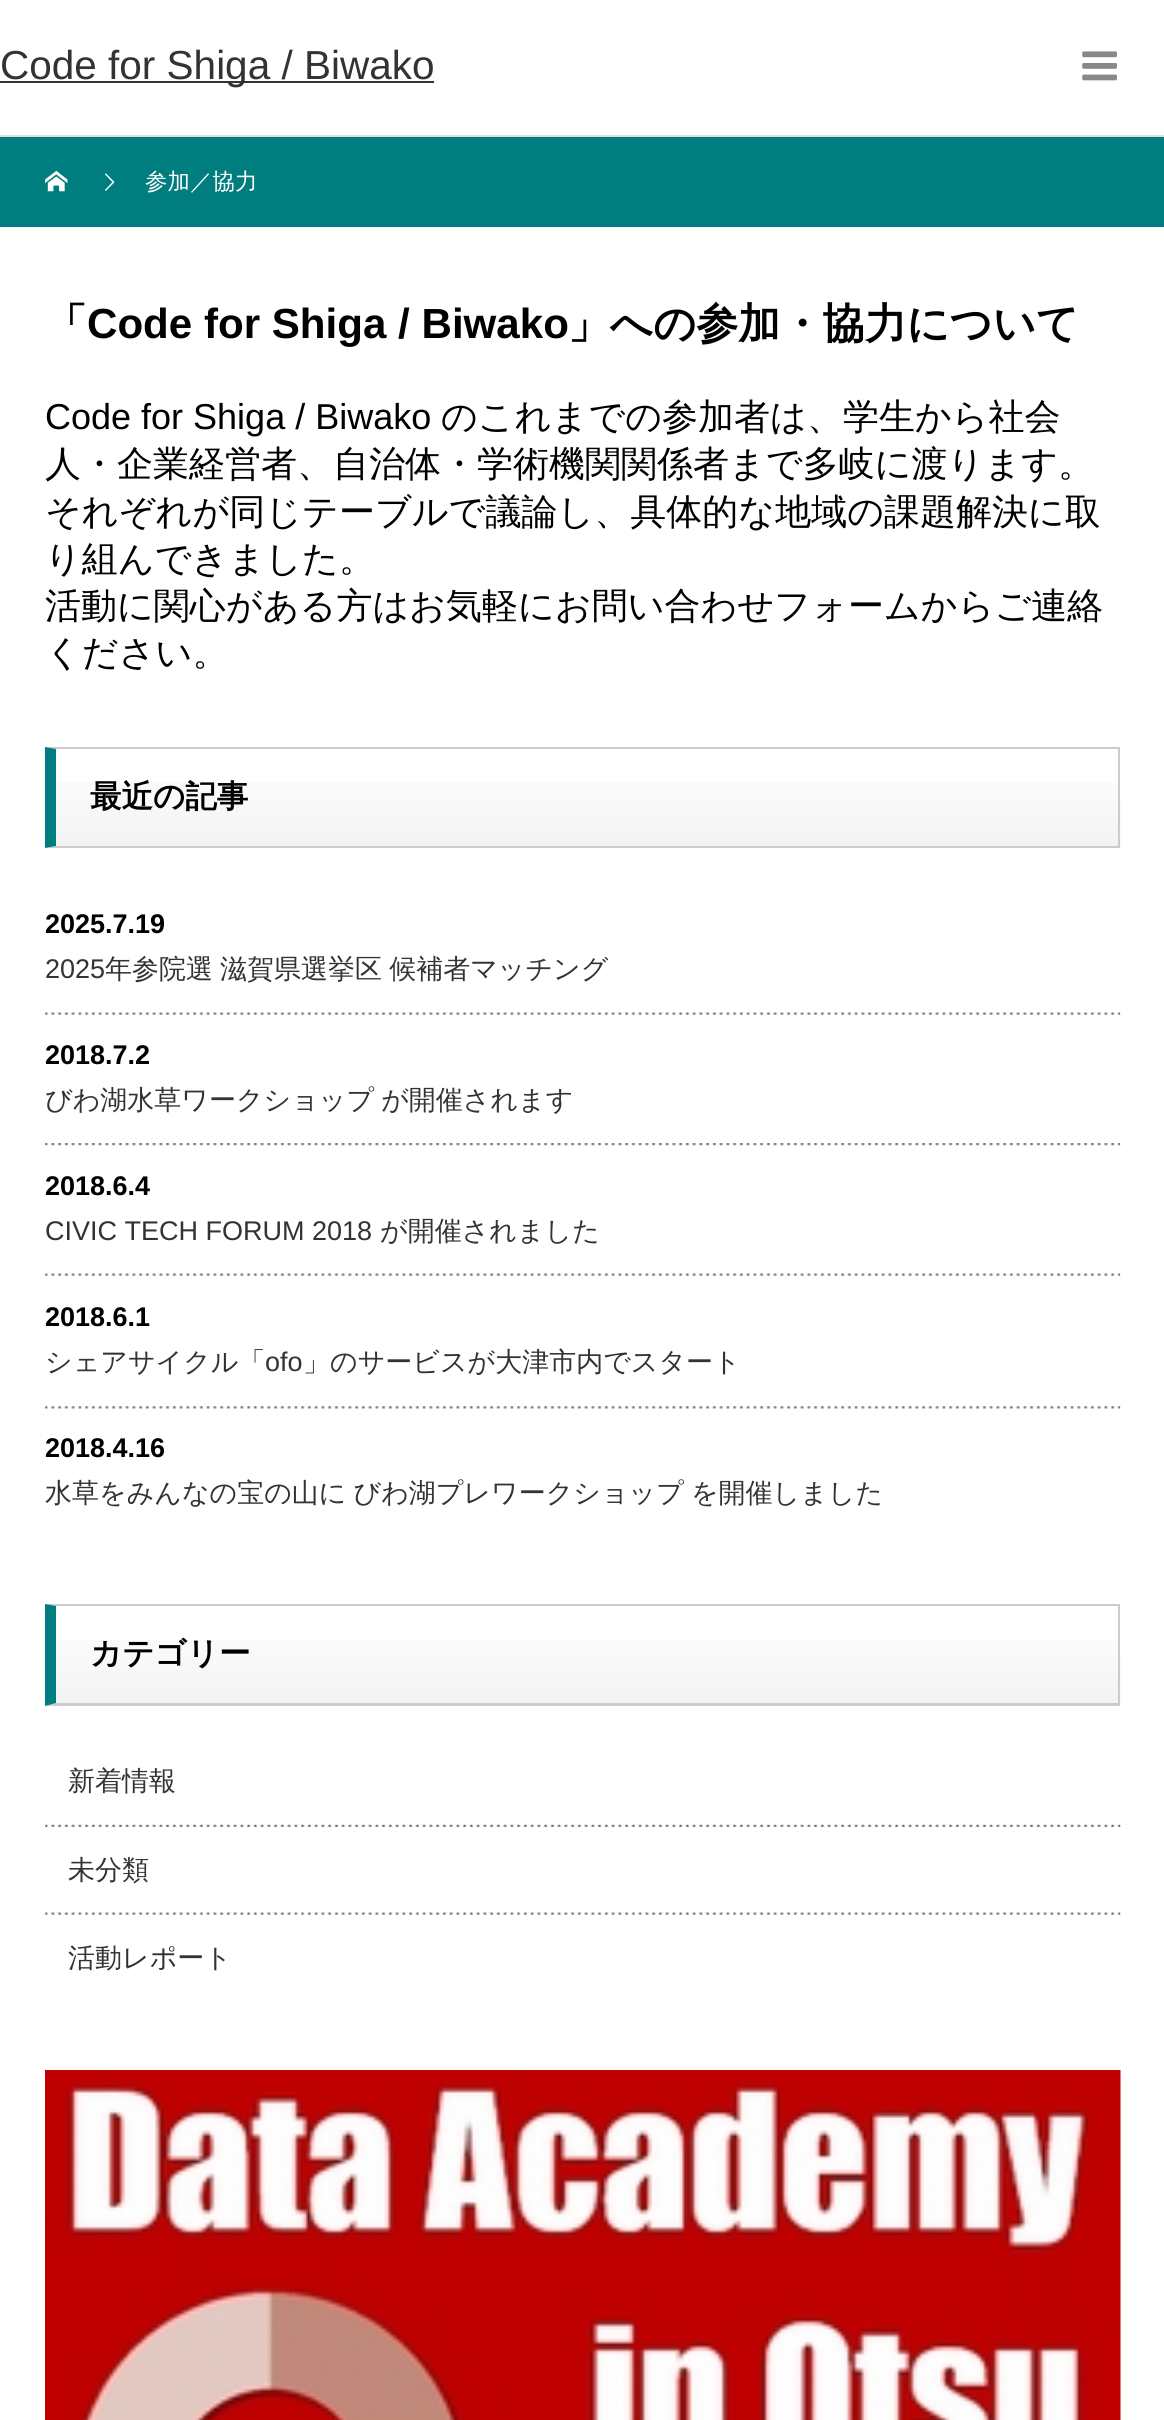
import math
import cairo

surface = cairo.ImageSurface(cairo.FORMAT_RGB24, 1164, 2420)
ctx = cairo.Context(surface)
options = cairo.FontOptions()
options.set_hint_metrics(cairo.HINT_METRICS_OFF)
options.set_hint_style(cairo.HINT_STYLE_NONE)
ctx.set_font_options(options)
ctx.set_miter_limit(4)


def spaced_text(x, y, s, letter, word):
    ctx.move_to(x, y)
    for ch in s:
        ctx.show_text(ch)
        ctx.rel_move_to(letter + word * (ch == ' '), 0)


def picture(path, x, y, w, h):
    ctx.save()
    ctx.set_source_surface(cairo.ImageSurface.create_from_png(path), x, y)
    ctx.rectangle(x, y, w, h)
    ctx.fill()
    ctx.restore()


ctx.set_source_rgb(1, 1, 1)
ctx.paint()
ctx.set_source_rgb(0.867, 0.867, 0.867)
ctx.rectangle(0, 135, 1164, 2)
ctx.fill()
ctx.set_source_rgb(0.2, 0.2, 0.2)
ctx.rectangle(0, 81, 434, 2)
ctx.fill()
ctx.select_font_face("Liberation Sans")
ctx.set_font_size(40.5)
ctx.move_to(0, 79)
ctx.show_text("Code for Shiga / Biwako")
picture("img1.png", 1082, 51, 35, 30)
ctx.set_source_rgb(0, 0.49, 0.498)
ctx.rectangle(0, 137, 1164, 90)
ctx.fill()
picture("img2.png", 45, 170, 23, 22)
picture("img3.png", 105, 173, 10, 18)
ctx.select_font_face("WenQuanYi Zen Hei Medium")
ctx.set_font_size(22.5)
ctx.set_source_rgb(1, 1, 1)
ctx.move_to(145, 189)
ctx.show_text("参加／協力")
ctx.select_font_face("WenQuanYi Zen Hei", cairo.FONT_SLANT_NORMAL, cairo.FONT_WEIGHT_BOLD)
ctx.set_font_size(42.1)
ctx.set_source_rgb(0, 0, 0)
ctx.move_to(45, 338)
ctx.show_text("「")
ctx.select_font_face("Liberation Sans", cairo.FONT_SLANT_NORMAL, cairo.FONT_WEIGHT_BOLD)
ctx.move_to(87, 338)
ctx.show_text("Code for Shiga / Biwako")
ctx.select_font_face("WenQuanYi Zen Hei", cairo.FONT_SLANT_NORMAL, cairo.FONT_WEIGHT_BOLD)
ctx.move_to(568, 338)
ctx.show_text("」への参加・協力について")
ctx.select_font_face("Liberation Sans")
ctx.set_font_size(36)
ctx.move_to(45, 429)
ctx.show_text("Code for Shiga / Biwako")
ctx.select_font_face("WenQuanYi Zen Hei Medium")
ctx.move_to(441, 429)
ctx.show_text("のこれまでの参加者は、学生から社会")
ctx.move_to(45, 476)
ctx.show_text("人・企業経営者、自治体・学術機関関係者まで多岐に渡ります。")
ctx.move_to(45, 524)
ctx.show_text("それぞれが同じテーブルで議論し、具体的な地域の課題解決に取")
ctx.move_to(45, 571)
ctx.show_text("り組んできました。")
ctx.move_to(45, 618)
ctx.show_text("活動に関心がある方はお気軽にお問い合わせフォームからご連絡")
ctx.move_to(45, 665)
ctx.show_text("ください。")
picture("img4.png", 56, 783, 1065, 63)
ctx.set_source_rgb(0.8, 0.8, 0.8)
ctx.new_path()
ctx.move_to(45, 747)
ctx.line_to(1120, 747)
ctx.line_to(1118, 749)
ctx.line_to(56, 749)
ctx.close_path()
ctx.fill()
ctx.rectangle(1118, 747, 2, 101)
ctx.fill()
ctx.new_path()
ctx.move_to(1120, 848)
ctx.line_to(45, 848)
ctx.line_to(56, 846)
ctx.line_to(1118, 846)
ctx.close_path()
ctx.fill()
ctx.set_source_rgb(0, 0.49, 0.498)
ctx.new_path()
ctx.move_to(45, 848)
ctx.line_to(45, 747)
ctx.line_to(56, 749)
ctx.line_to(56, 846)
ctx.close_path()
ctx.fill()
ctx.select_font_face("WenQuanYi Zen Hei", cairo.FONT_SLANT_NORMAL, cairo.FONT_WEIGHT_BOLD)
ctx.set_font_size(31.5)
ctx.set_source_rgb(0, 0, 0)
ctx.move_to(90, 807)
ctx.show_text("最近の記事")
picture("img5.png", 45, 1012, 1076, 3)
ctx.select_font_face("Liberation Sans", cairo.FONT_SLANT_NORMAL, cairo.FONT_WEIGHT_BOLD)
ctx.set_font_size(27)
ctx.move_to(45, 933)
ctx.show_text("2025.7.19")
ctx.select_font_face("Liberation Sans")
ctx.set_source_rgb(0.2, 0.2, 0.2)
ctx.move_to(45, 978)
ctx.show_text("2025")
ctx.select_font_face("WenQuanYi Zen Hei Medium")
spaced_text(105, 978, "年参院選 滋賀県選挙区 候補者マッチング", 0, -1)
picture("img6.png", 45, 1143, 1076, 3)
ctx.select_font_face("Liberation Sans", cairo.FONT_SLANT_NORMAL, cairo.FONT_WEIGHT_BOLD)
ctx.set_source_rgb(0, 0, 0)
ctx.move_to(45, 1064)
ctx.show_text("2018.7.2")
ctx.select_font_face("WenQuanYi Zen Hei Medium")
ctx.set_source_rgb(0.2, 0.2, 0.2)
spaced_text(45, 1109, "びわ湖水草ワークショップ が開催されます", 0, -1)
picture("img5.png", 45, 1273, 1076, 3)
ctx.select_font_face("Liberation Sans", cairo.FONT_SLANT_NORMAL, cairo.FONT_WEIGHT_BOLD)
ctx.set_source_rgb(0, 0, 0)
ctx.move_to(45, 1195)
ctx.show_text("2018.6.4")
ctx.select_font_face("Liberation Sans")
ctx.set_source_rgb(0.2, 0.2, 0.2)
ctx.move_to(45, 1240)
ctx.show_text("CIVIC TECH FORUM 2018")
ctx.select_font_face("WenQuanYi Zen Hei Medium")
ctx.move_to(380, 1240)
ctx.show_text("が開催されました")
picture("img7.png", 45, 1406, 1076, 3)
ctx.select_font_face("Liberation Sans", cairo.FONT_SLANT_NORMAL, cairo.FONT_WEIGHT_BOLD)
ctx.set_source_rgb(0, 0, 0)
ctx.move_to(45, 1326)
ctx.show_text("2018.6.1")
ctx.select_font_face("WenQuanYi Zen Hei Medium")
ctx.set_source_rgb(0.2, 0.2, 0.2)
ctx.move_to(45, 1371)
ctx.show_text("シェアサイクル「")
ctx.select_font_face("Liberation Sans")
ctx.move_to(265, 1371)
ctx.show_text("ofo")
ctx.select_font_face("WenQuanYi Zen Hei Medium")
ctx.move_to(303, 1371)
ctx.show_text("」のサービスが大津市内でスタート")
ctx.select_font_face("Liberation Sans", cairo.FONT_SLANT_NORMAL, cairo.FONT_WEIGHT_BOLD)
ctx.set_source_rgb(0, 0, 0)
ctx.move_to(45, 1457)
ctx.show_text("2018.4.16")
ctx.select_font_face("WenQuanYi Zen Hei Medium")
ctx.set_source_rgb(0.2, 0.2, 0.2)
spaced_text(45, 1502, "水草をみんなの宝の山に びわ湖プレワークショップ を開催しました", 0, -1)
picture("img4.png", 56, 1640, 1065, 63)
ctx.set_source_rgb(0.8, 0.8, 0.8)
ctx.new_path()
ctx.move_to(45, 1604)
ctx.line_to(1120, 1604)
ctx.line_to(1118, 1606)
ctx.line_to(56, 1606)
ctx.close_path()
ctx.fill()
ctx.rectangle(1118, 1604, 2, 102)
ctx.fill()
ctx.new_path()
ctx.move_to(1120, 1706)
ctx.line_to(45, 1706)
ctx.line_to(56, 1703)
ctx.line_to(1118, 1703)
ctx.close_path()
ctx.fill()
ctx.set_source_rgb(0, 0.49, 0.498)
ctx.new_path()
ctx.move_to(45, 1706)
ctx.line_to(45, 1604)
ctx.line_to(56, 1606)
ctx.line_to(56, 1703)
ctx.close_path()
ctx.fill()
ctx.select_font_face("WenQuanYi Zen Hei", cairo.FONT_SLANT_NORMAL, cairo.FONT_WEIGHT_BOLD)
ctx.set_font_size(31.5)
ctx.set_source_rgb(0, 0, 0)
ctx.move_to(90, 1664)
ctx.show_text("カテゴリー")
picture("img8.png", 45, 1824, 1076, 3)
ctx.select_font_face("WenQuanYi Zen Hei Medium")
ctx.set_font_size(27)
ctx.set_source_rgb(0.2, 0.2, 0.2)
ctx.move_to(68, 1790)
ctx.show_text("新着情報")
picture("img9.png", 45, 1912, 1076, 3)
ctx.move_to(68, 1879)
ctx.show_text("未分類")
ctx.move_to(68, 1967)
ctx.show_text("活動レポート")
picture("img10.png", 45, 2070, 1076, 350)
surface.write_to_png("page.png")
